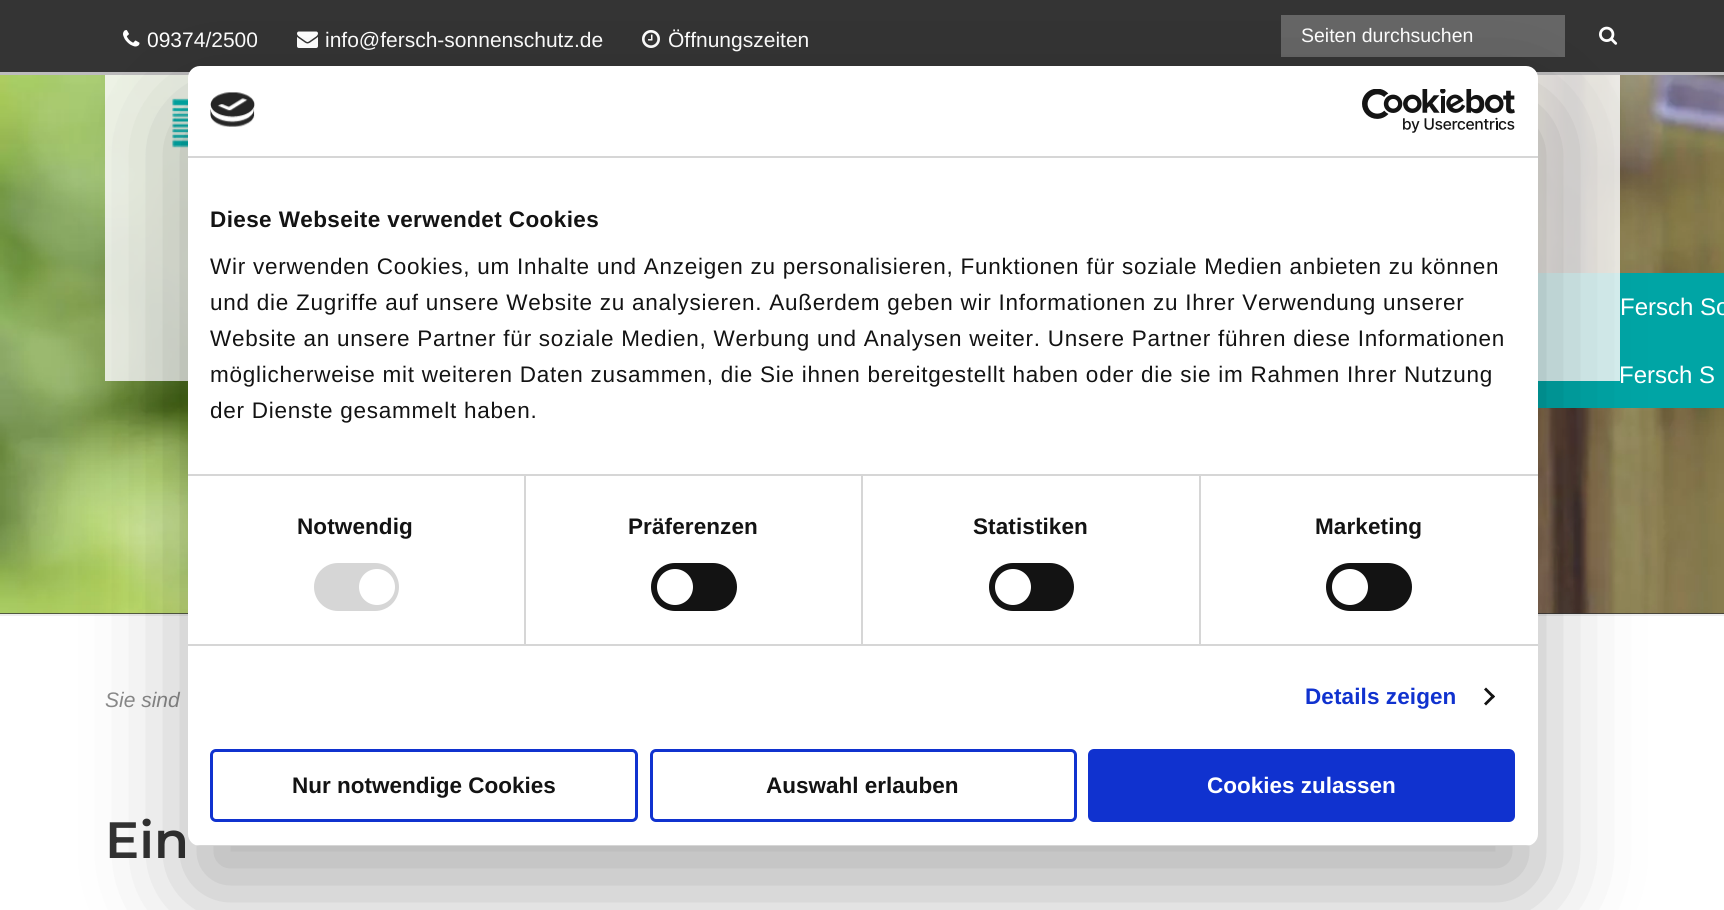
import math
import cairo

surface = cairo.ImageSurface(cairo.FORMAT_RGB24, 1724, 910)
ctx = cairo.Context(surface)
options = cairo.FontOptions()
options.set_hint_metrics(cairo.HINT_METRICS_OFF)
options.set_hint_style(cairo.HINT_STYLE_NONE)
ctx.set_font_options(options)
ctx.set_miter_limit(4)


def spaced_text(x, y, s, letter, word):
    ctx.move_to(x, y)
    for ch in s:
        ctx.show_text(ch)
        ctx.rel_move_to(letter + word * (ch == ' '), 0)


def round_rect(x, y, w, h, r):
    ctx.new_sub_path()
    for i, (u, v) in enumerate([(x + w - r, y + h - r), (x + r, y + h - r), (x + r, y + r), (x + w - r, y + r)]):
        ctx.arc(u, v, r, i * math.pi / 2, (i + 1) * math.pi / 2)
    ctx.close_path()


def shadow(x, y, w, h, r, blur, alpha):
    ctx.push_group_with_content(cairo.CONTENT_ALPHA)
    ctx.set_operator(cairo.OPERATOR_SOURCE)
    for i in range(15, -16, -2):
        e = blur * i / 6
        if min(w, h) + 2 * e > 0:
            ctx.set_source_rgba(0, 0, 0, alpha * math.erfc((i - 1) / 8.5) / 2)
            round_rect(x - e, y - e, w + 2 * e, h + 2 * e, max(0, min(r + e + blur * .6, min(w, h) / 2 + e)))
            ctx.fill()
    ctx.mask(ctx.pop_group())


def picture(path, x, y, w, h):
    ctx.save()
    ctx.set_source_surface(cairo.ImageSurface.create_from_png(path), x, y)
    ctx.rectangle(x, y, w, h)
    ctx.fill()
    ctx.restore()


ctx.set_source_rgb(1, 1, 1)
ctx.paint()
ctx.set_source_rgb(0.204, 0.204, 0.204)
ctx.rectangle(0, 0, 1724, 72)
ctx.fill()
ctx.set_source_rgb(0.741, 0.737, 0.741)
ctx.rectangle(0, 72, 1724, 3)
ctx.fill()
picture("img1.png", 123, 30, 17, 17)
ctx.select_font_face("Liberation Sans")
ctx.set_font_size(21)
ctx.set_source_rgb(1, 1, 1)
ctx.move_to(147, 47)
ctx.show_text("09374/2500")
picture("img2.png", 297, 31, 21, 17)
ctx.move_to(325, 47)
ctx.show_text("info@fersch-sonnenschutz.de")
picture("img3.png", 642, 30, 18, 18)
ctx.move_to(668, 47)
ctx.show_text("Öffnungszeiten")
ctx.set_source_rgb(0.4, 0.4, 0.4)
ctx.rectangle(1281, 15, 284, 42)
ctx.fill()
ctx.set_font_size(19.5)
ctx.set_source_rgb(1, 1, 1)
ctx.move_to(1301, 42)
ctx.show_text("Seiten durchsuchen")
picture("img4.png", 1599, 26, 19, 19)
ctx.set_source_rgb(0.2, 0.2, 0.2)
ctx.rectangle(0, 613, 1724, 1)
ctx.fill()
ctx.set_source_rgb(0.933, 0.933, 0.933)
ctx.rectangle(0, 614, 1724, 2)
ctx.fill()
picture("img5.png", 0, 75, 1724, 539)
ctx.set_source_rgb(0, 0.647, 0.647)
ctx.rectangle(1538, 273, 186, 135)
ctx.fill()
ctx.set_source_rgba(0.98, 0.98, 0.98, 0.85)
ctx.rectangle(105, 75, 1515, 306)
ctx.fill()
picture("img6.png", 172, 98, 16, 50)
ctx.select_font_face("Liberation Sans", cairo.FONT_SLANT_ITALIC)
ctx.set_font_size(21)
ctx.set_source_rgb(0.545, 0.545, 0.545)
ctx.move_to(105, 707)
ctx.show_text("Sie sind")
ctx.select_font_face("Montserrat Thin")
ctx.set_font_size(51)
ctx.set_source_rgb(0.2, 0.2, 0.2)
ctx.move_to(105, 858)
ctx.show_text("Ein")
ctx.set_source_rgb(0, 0, 0)
shadow(188, 114, 1350, 780, 12, 51, 0.3)
ctx.set_source_rgb(1, 1, 1)
round_rect(188, 66, 1350, 780, 12)
ctx.fill()
ctx.set_source_rgb(0.839, 0.839, 0.839)
ctx.rectangle(188, 156, 1350, 2)
ctx.fill()
picture("img7.png", 210, 92, 45, 35)
picture("img8.png", 1362, 89, 153, 44)
ctx.rectangle(188, 474, 1350, 2)
ctx.fill()
ctx.select_font_face("Liberation Sans", cairo.FONT_SLANT_NORMAL, cairo.FONT_WEIGHT_BOLD)
ctx.set_font_size(22.5)
ctx.set_source_rgb(0.078, 0.078, 0.078)
spaced_text(210, 227, "Diese Webseite verwendet Cookies", 0.4, 0)
ctx.select_font_face("Liberation Sans")
spaced_text(210, 274, "Wir verwenden Cookies, um Inhalte und Anzeigen zu personalisieren, Funktionen für soziale Medien anbieten zu können", 0.75, 0)
spaced_text(210, 310, "und die Zugriffe auf unsere Website zu analysieren. Außerdem geben wir Informationen zu Ihrer Verwendung unserer", 0.75, 0)
spaced_text(210, 346, "Website an unsere Partner für soziale Medien, Werbung und Analysen weiter. Unsere Partner führen diese Informationen", 0.75, 0)
spaced_text(210, 382, "möglicherweise mit weiteren Daten zusammen, die Sie ihnen bereitgestellt haben oder die sie im Rahmen Ihrer Nutzung", 0.75, 0)
spaced_text(210, 418, "der Dienste gesammelt haben.", 0.75, 0)
ctx.set_source_rgb(0.839, 0.839, 0.839)
ctx.rectangle(188, 644, 1350, 2)
ctx.fill()
ctx.rectangle(524, 476, 2, 168)
ctx.fill()
ctx.select_font_face("Liberation Sans", cairo.FONT_SLANT_NORMAL, cairo.FONT_WEIGHT_BOLD)
ctx.set_source_rgb(0.078, 0.078, 0.078)
spaced_text(297, 534, "Notwendig", 0.1, 0)
ctx.set_source_rgb(0.839, 0.839, 0.839)
round_rect(314, 563, 85, 48, 24)
ctx.fill()
ctx.set_source_rgb(1, 1, 1)
ctx.arc(377, 587, 18, 0, 2 * math.pi)
ctx.fill()
ctx.set_source_rgb(0.839, 0.839, 0.839)
ctx.rectangle(861, 476, 2, 168)
ctx.fill()
ctx.set_source_rgb(0.078, 0.078, 0.078)
spaced_text(628, 534, "Präferenzen", 0.1, 0)
round_rect(651, 563, 86, 48, 24)
ctx.fill()
ctx.set_source_rgb(1, 1, 1)
ctx.arc(675, 587, 18, 0, 2 * math.pi)
ctx.fill()
ctx.set_source_rgb(0.839, 0.839, 0.839)
ctx.rectangle(1199, 476, 2, 168)
ctx.fill()
ctx.set_source_rgb(0.078, 0.078, 0.078)
spaced_text(973, 534, "Statistiken", 0.1, 0)
round_rect(989, 563, 85, 48, 24)
ctx.fill()
ctx.set_source_rgb(1, 1, 1)
ctx.arc(1013, 587, 18, 0, 2 * math.pi)
ctx.fill()
ctx.set_source_rgb(0.078, 0.078, 0.078)
spaced_text(1315, 534, "Marketing", 0.1, 0)
round_rect(1326, 563, 86, 48, 24)
ctx.fill()
ctx.set_source_rgb(1, 1, 1)
ctx.arc(1350, 587, 18, 0, 2 * math.pi)
ctx.fill()
ctx.set_source_rgb(0.063, 0.196, 0.812)
spaced_text(1305, 704, "Details zeigen", 0.1, 0)
ctx.set_source_rgb(0.078, 0.078, 0.078)
ctx.new_path()
ctx.move_to(1486, 687.5)
ctx.line_to(1495, 696.5)
ctx.line_to(1493, 698.5)
ctx.line_to(1484, 689.5)
ctx.close_path()
ctx.fill()
ctx.new_path()
ctx.move_to(1493, 694.5)
ctx.line_to(1495, 696.5)
ctx.line_to(1486, 705.5)
ctx.line_to(1484, 703.5)
ctx.close_path()
ctx.fill()
ctx.save()
round_rect(188, 66, 1350, 780, 12)
ctx.clip()
ctx.set_source_rgb(0.839, 0.839, 0.839)
ctx.rectangle(188, 845, 1350, 1)
ctx.fill()
ctx.restore()
round_rect(211.5, 750.5, 425, 70, 4.5)
ctx.set_source_rgb(0.063, 0.196, 0.812)
ctx.set_line_width(3)
ctx.stroke()
ctx.set_source_rgb(0.078, 0.078, 0.078)
ctx.move_to(292, 793)
ctx.show_text("Nur notwendige Cookies")
round_rect(651.5, 750.5, 424, 70, 4.5)
ctx.set_source_rgb(0.063, 0.196, 0.812)
ctx.stroke()
ctx.set_source_rgb(0.078, 0.078, 0.078)
ctx.move_to(766, 793)
ctx.show_text("Auswahl erlauben")
ctx.set_source_rgb(0.063, 0.196, 0.812)
round_rect(1089.5, 750.5, 424, 70, 4.5)
ctx.fill_preserve()
ctx.stroke()
ctx.set_source_rgb(1, 1, 1)
ctx.move_to(1207, 793)
ctx.show_text("Cookies zulassen")
ctx.select_font_face("Liberation Sans")
ctx.set_font_size(24)
ctx.move_to(1620, 315)
ctx.show_text("Fersch So")
ctx.move_to(1619, 383)
ctx.show_text("Fersch S")
surface.write_to_png("page.png")
